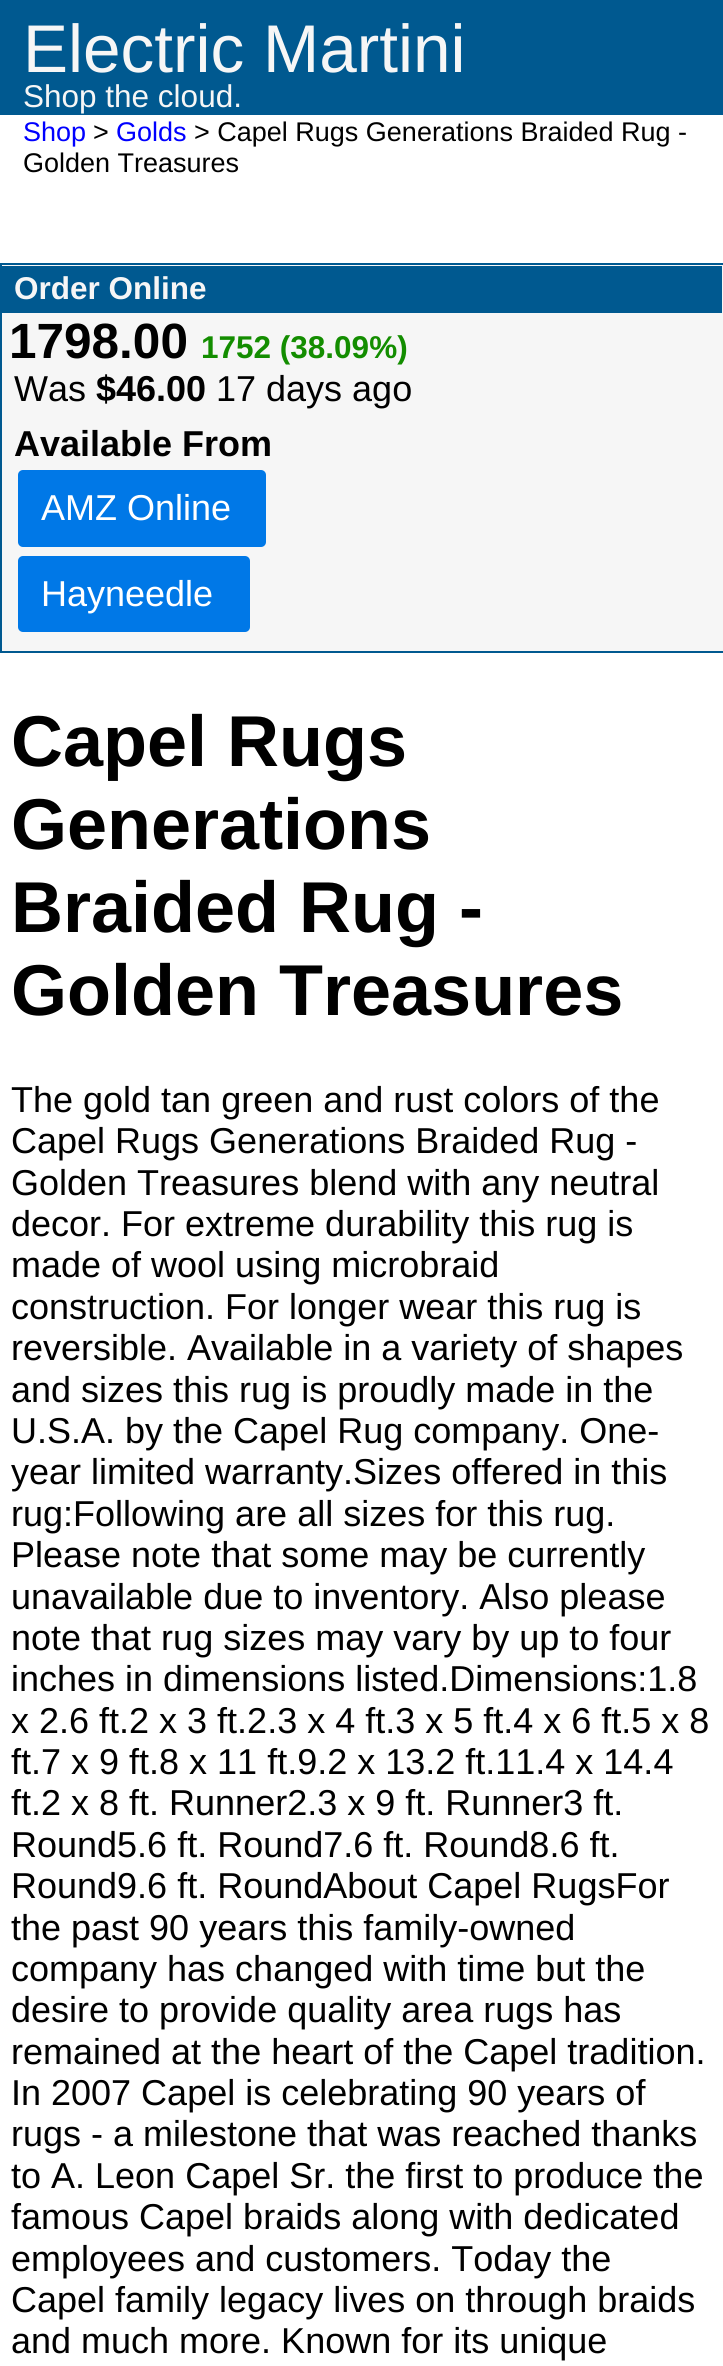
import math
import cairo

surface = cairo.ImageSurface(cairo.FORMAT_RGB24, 723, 2366)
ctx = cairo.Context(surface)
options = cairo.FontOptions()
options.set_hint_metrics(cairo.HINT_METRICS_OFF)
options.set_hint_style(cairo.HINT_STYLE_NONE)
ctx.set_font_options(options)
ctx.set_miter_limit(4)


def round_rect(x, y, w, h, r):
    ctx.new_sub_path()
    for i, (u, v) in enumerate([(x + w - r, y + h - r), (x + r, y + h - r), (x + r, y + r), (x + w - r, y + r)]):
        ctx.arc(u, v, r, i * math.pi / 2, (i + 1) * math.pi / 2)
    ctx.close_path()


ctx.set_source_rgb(1, 1, 1)
ctx.paint()
ctx.set_source_rgb(0, 0.349, 0.565)
ctx.rectangle(0, 0, 723, 115)
ctx.fill()
ctx.select_font_face("Liberation Sans")
ctx.set_font_size(67.5)
ctx.set_source_rgb(0.961, 0.961, 0.961)
ctx.move_to(23, 72)
ctx.show_text("Electric Martini")
ctx.set_font_size(31.5)
ctx.move_to(23, 107)
ctx.show_text("Shop the cloud.")
ctx.set_font_size(27)
ctx.set_source_rgb(0, 0, 1)
ctx.move_to(23, 141)
ctx.show_text("Shop")
ctx.set_source_rgb(0, 0, 0)
ctx.move_to(93, 141)
ctx.show_text(">")
ctx.set_source_rgb(0, 0, 1)
ctx.move_to(116, 141)
ctx.show_text("Golds")
ctx.set_source_rgb(0, 0, 0)
ctx.move_to(194, 141)
ctx.show_text("> Capel Rugs Generations Braided Rug -")
ctx.move_to(23, 172)
ctx.show_text("Golden Treasures")
ctx.set_source_rgb(0.961, 0.961, 0.961)
ctx.rectangle(1, 264, 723, 388)
ctx.fill_preserve()
ctx.set_source_rgb(0, 0.349, 0.565)
ctx.stroke()
ctx.rectangle(2, 266, 720, 47)
ctx.fill()
ctx.select_font_face("Liberation Sans", cairo.FONT_SLANT_NORMAL, cairo.FONT_WEIGHT_BOLD)
ctx.set_font_size(31.5)
ctx.set_source_rgb(0.961, 0.961, 0.961)
ctx.move_to(14, 299)
ctx.show_text("Order Online")
ctx.set_font_size(49.5)
ctx.set_source_rgb(0, 0, 0)
ctx.move_to(9, 358)
ctx.show_text("1798.00")
ctx.set_font_size(31.5)
ctx.set_source_rgb(0.078, 0.553, 0)
ctx.move_to(201, 358)
ctx.show_text("1752 (38.09%)")
ctx.select_font_face("Liberation Sans")
ctx.set_font_size(36)
ctx.set_source_rgb(0, 0, 0)
ctx.move_to(14, 401)
ctx.show_text("Was")
ctx.select_font_face("Liberation Sans", cairo.FONT_SLANT_NORMAL, cairo.FONT_WEIGHT_BOLD)
ctx.move_to(96, 401)
ctx.show_text("$46.00")
ctx.select_font_face("Liberation Sans")
ctx.move_to(216, 401)
ctx.show_text("17 days ago")
ctx.select_font_face("Liberation Sans", cairo.FONT_SLANT_NORMAL, cairo.FONT_WEIGHT_BOLD)
ctx.move_to(14, 456)
ctx.show_text("Available From")
ctx.set_source_rgb(0, 0.471, 0.906)
round_rect(18, 470, 248, 77, 5)
ctx.fill()
ctx.select_font_face("Liberation Sans")
ctx.set_source_rgb(1, 1, 1)
ctx.move_to(41, 520)
ctx.show_text("AMZ Online")
ctx.set_source_rgb(0, 0.471, 0.906)
round_rect(18, 556, 232, 76, 5)
ctx.fill()
ctx.set_source_rgb(1, 1, 1)
ctx.move_to(41, 606)
ctx.show_text("Hayneedle")
ctx.select_font_face("Liberation Sans", cairo.FONT_SLANT_NORMAL, cairo.FONT_WEIGHT_BOLD)
ctx.set_font_size(72)
ctx.set_source_rgb(0, 0, 0)
ctx.move_to(11, 766)
ctx.show_text("Capel Rugs")
ctx.move_to(11, 849)
ctx.show_text("Generations")
ctx.move_to(11, 932)
ctx.show_text("Braided Rug -")
ctx.move_to(11, 1015)
ctx.show_text("Golden Treasures")
ctx.select_font_face("Liberation Sans")
ctx.set_font_size(36)
ctx.move_to(11, 1112)
ctx.show_text("The gold tan green and rust colors of the")
ctx.move_to(11, 1153)
ctx.show_text("Capel Rugs Generations Braided Rug -")
ctx.move_to(11, 1195)
ctx.show_text("Golden Treasures blend with any neutral")
ctx.move_to(11, 1236)
ctx.show_text("decor. For extreme durability this rug is")
ctx.move_to(11, 1277)
ctx.show_text("made of wool using microbraid")
ctx.move_to(11, 1319)
ctx.show_text("construction. For longer wear this rug is")
ctx.move_to(11, 1360)
ctx.show_text("reversible. Available in a variety of shapes")
ctx.move_to(11, 1402)
ctx.show_text("and sizes this rug is proudly made in the")
ctx.move_to(11, 1443)
ctx.show_text("U.S.A. by the Capel Rug company. One-")
ctx.move_to(11, 1484)
ctx.show_text("year limited warranty.Sizes offered in this")
ctx.move_to(11, 1526)
ctx.show_text("rug:Following are all sizes for this rug.")
ctx.move_to(11, 1567)
ctx.show_text("Please note that some may be currently")
ctx.move_to(11, 1609)
ctx.show_text("unavailable due to inventory. Also please")
ctx.move_to(11, 1650)
ctx.show_text("note that rug sizes may vary by up to four")
ctx.move_to(11, 1691)
ctx.show_text("inches in dimensions listed.Dimensions:1.8")
ctx.move_to(11, 1733)
ctx.show_text("x 2.6 ft.2 x 3 ft.2.3 x 4 ft.3 x 5 ft.4 x 6 ft.5 x 8")
ctx.move_to(11, 1774)
ctx.show_text("ft.7 x 9 ft.8 x 11 ft.9.2 x 13.2 ft.11.4 x 14.4")
ctx.move_to(11, 1815)
ctx.show_text("ft.2 x 8 ft. Runner2.3 x 9 ft. Runner3 ft.")
ctx.move_to(11, 1857)
ctx.show_text("Round5.6 ft. Round7.6 ft. Round8.6 ft.")
ctx.move_to(11, 1898)
ctx.show_text("Round9.6 ft. RoundAbout Capel RugsFor")
ctx.move_to(11, 1940)
ctx.show_text("the past 90 years this family-owned")
ctx.move_to(11, 1981)
ctx.show_text("company has changed with time but the")
ctx.move_to(11, 2022)
ctx.show_text("desire to provide quality area rugs has")
ctx.move_to(11, 2064)
ctx.show_text("remained at the heart of the Capel tradition.")
ctx.move_to(11, 2105)
ctx.show_text("In 2007 Capel is celebrating 90 years of")
ctx.move_to(11, 2146)
ctx.show_text("rugs - a milestone that was reached thanks")
ctx.move_to(11, 2188)
ctx.show_text("to A. Leon Capel Sr. the first to produce the")
ctx.move_to(11, 2229)
ctx.show_text("famous Capel braids along with dedicated")
ctx.move_to(11, 2271)
ctx.show_text("employees and customers. Today the")
ctx.move_to(11, 2312)
ctx.show_text("Capel family legacy lives on through braids")
ctx.move_to(11, 2353)
ctx.show_text("and much more. Known for its unique")
surface.write_to_png("page.png")
